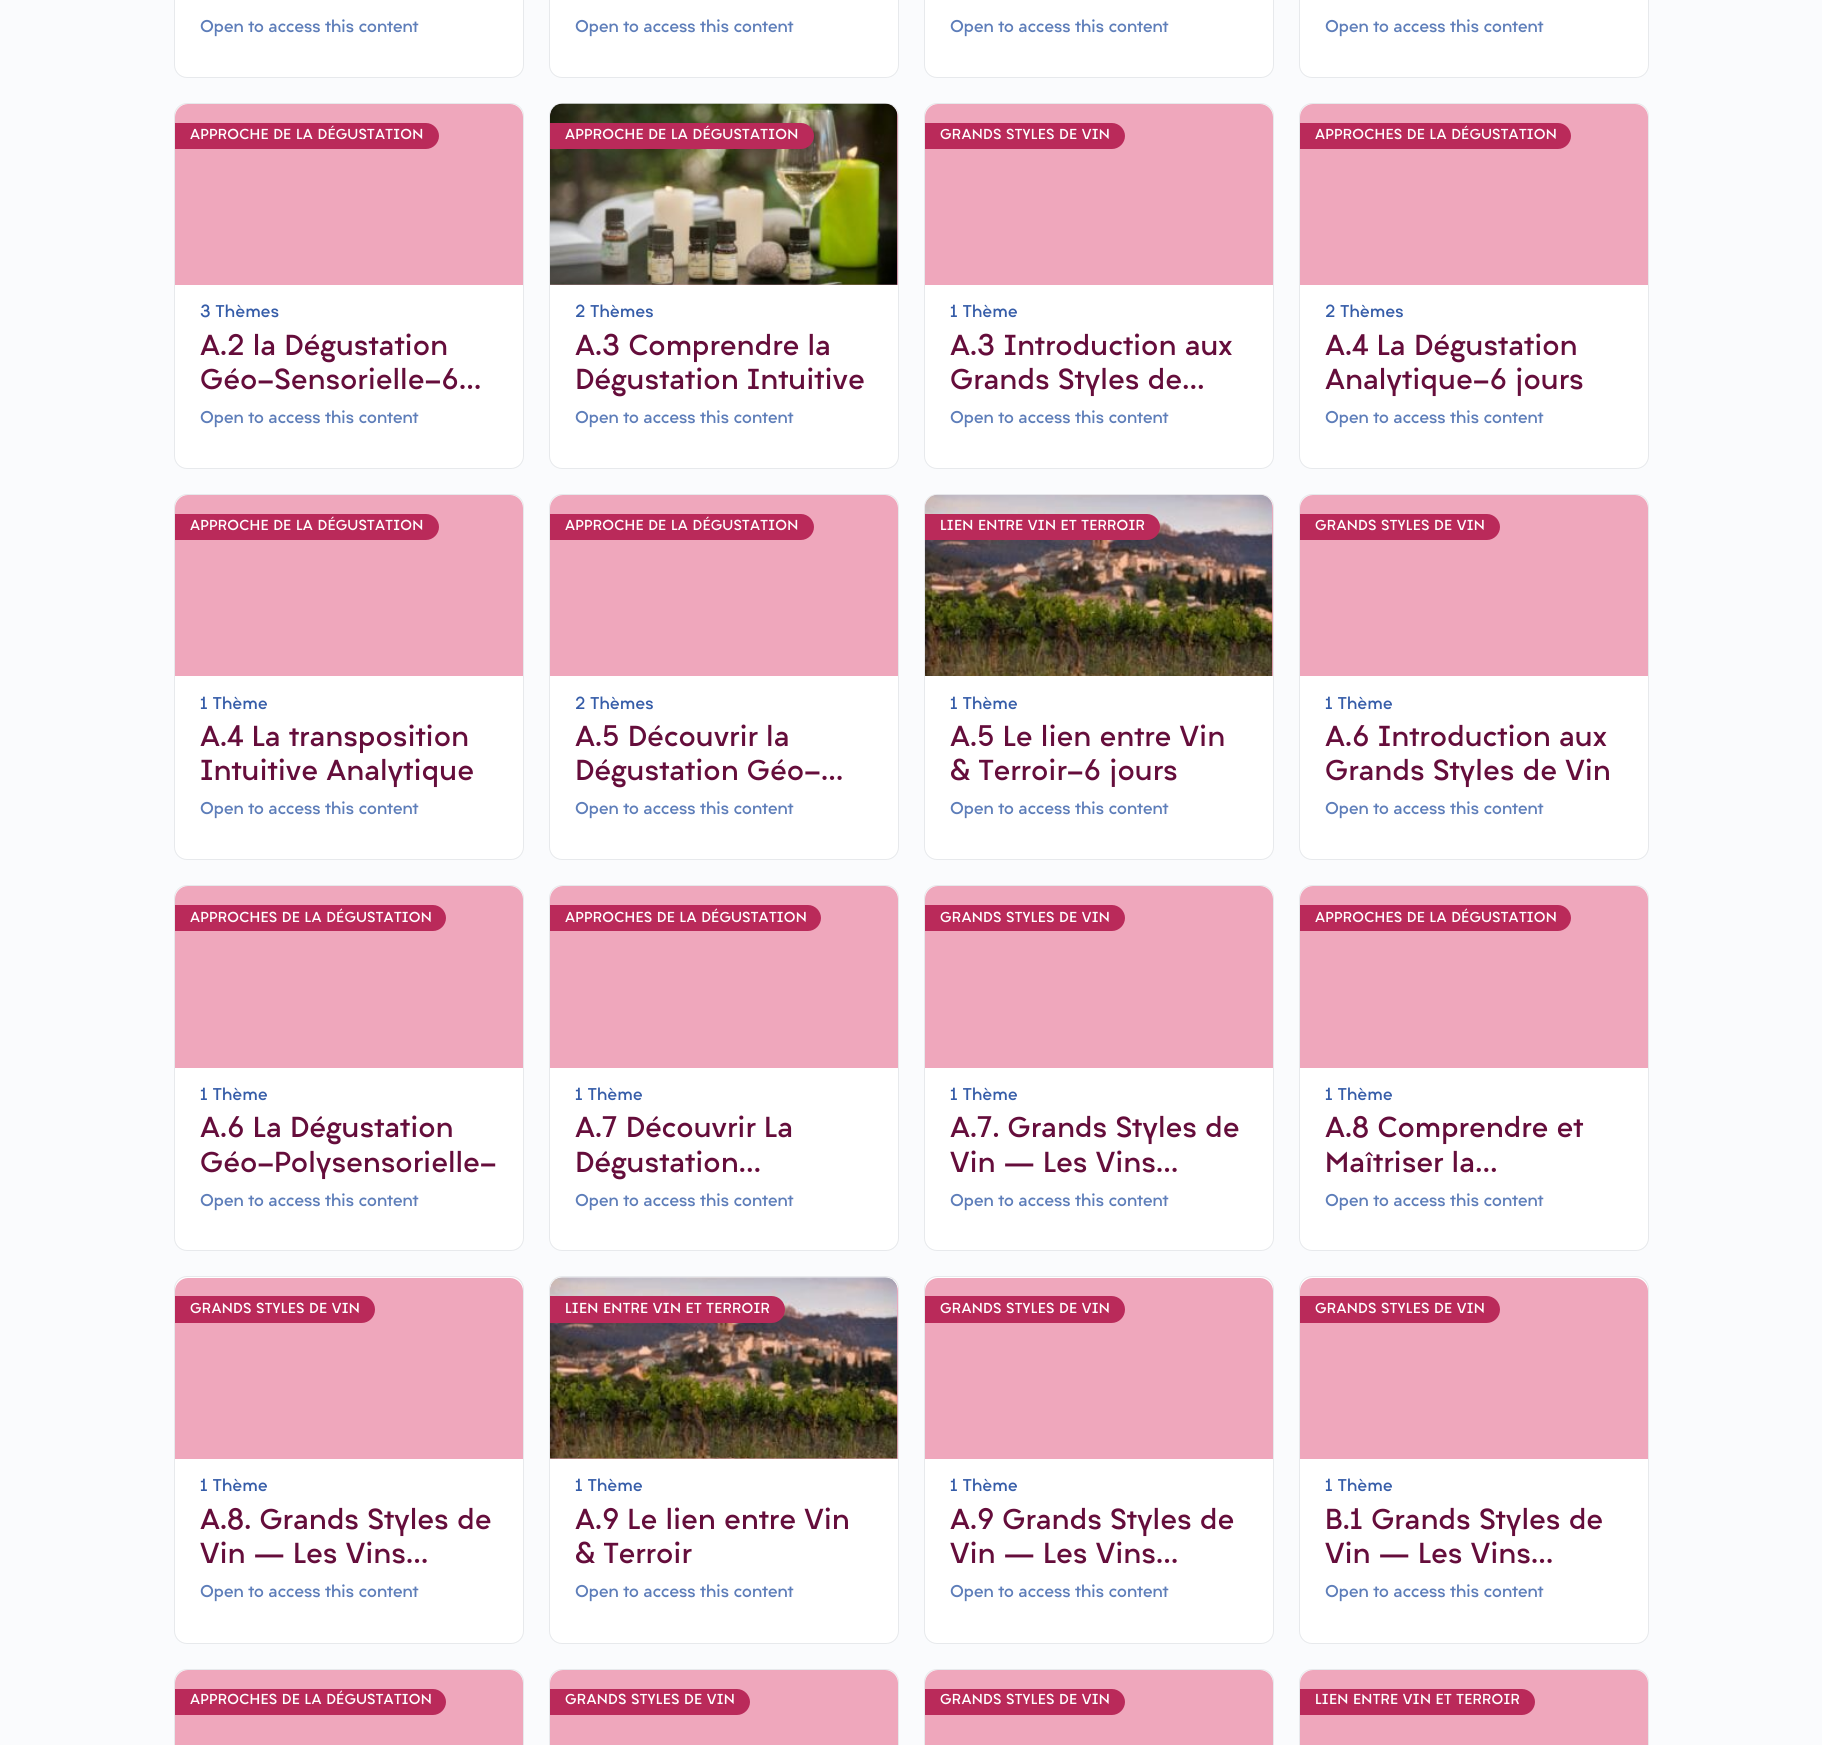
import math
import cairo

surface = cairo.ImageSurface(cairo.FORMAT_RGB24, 1822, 1745)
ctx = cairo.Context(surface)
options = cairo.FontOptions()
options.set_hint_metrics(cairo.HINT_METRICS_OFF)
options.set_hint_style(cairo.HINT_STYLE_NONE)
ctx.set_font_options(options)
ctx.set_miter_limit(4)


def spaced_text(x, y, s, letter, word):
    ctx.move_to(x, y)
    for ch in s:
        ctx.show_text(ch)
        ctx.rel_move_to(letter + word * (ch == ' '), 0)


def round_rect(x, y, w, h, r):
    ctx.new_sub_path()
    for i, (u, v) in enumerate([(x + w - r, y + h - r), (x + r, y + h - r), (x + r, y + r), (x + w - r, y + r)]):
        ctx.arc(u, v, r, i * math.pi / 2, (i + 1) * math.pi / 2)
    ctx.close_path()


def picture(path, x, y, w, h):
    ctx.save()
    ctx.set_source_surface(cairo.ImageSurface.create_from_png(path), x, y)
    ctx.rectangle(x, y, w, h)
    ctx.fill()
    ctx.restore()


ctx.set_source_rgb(0.98, 0.984, 0.992)
ctx.paint()
ctx.set_source_rgb(1, 1, 1)
round_rect(174.5, -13.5, 349, 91, 12.5)
ctx.fill_preserve()
ctx.set_source_rgb(0.906, 0.914, 0.925)
ctx.set_line_width(1)
ctx.stroke()
ctx.select_font_face("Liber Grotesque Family", cairo.FONT_SLANT_NORMAL, cairo.FONT_WEIGHT_BOLD)
ctx.set_font_size(16.25)
ctx.set_source_rgb(0.365, 0.49, 0.725)
spaced_text(200, 32, "Open to access this content", -0.3, 0)
ctx.set_source_rgb(1, 1, 1)
round_rect(549.5, -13.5, 349, 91, 12.5)
ctx.fill_preserve()
ctx.set_source_rgb(0.906, 0.914, 0.925)
ctx.stroke()
ctx.set_source_rgb(0.365, 0.49, 0.725)
spaced_text(575, 32, "Open to access this content", -0.3, 0)
ctx.set_source_rgb(1, 1, 1)
round_rect(924.5, -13.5, 349, 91, 12.5)
ctx.fill_preserve()
ctx.set_source_rgb(0.906, 0.914, 0.925)
ctx.stroke()
ctx.set_source_rgb(0.365, 0.49, 0.725)
spaced_text(950, 32, "Open to access this content", -0.3, 0)
ctx.set_source_rgb(1, 1, 1)
round_rect(1299.5, -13.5, 349, 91, 12.5)
ctx.fill_preserve()
ctx.set_source_rgb(0.906, 0.914, 0.925)
ctx.stroke()
ctx.set_source_rgb(0.365, 0.49, 0.725)
spaced_text(1325, 32, "Open to access this content", -0.3, 0)
ctx.set_source_rgb(1, 1, 1)
round_rect(174.5, 103.5, 349, 365, 12.5)
ctx.fill_preserve()
ctx.set_source_rgb(0.906, 0.914, 0.925)
ctx.stroke()
ctx.save()
round_rect(175, 104, 348, 364, 11)
ctx.clip()
ctx.set_source_rgb(0.937, 0.655, 0.737)
ctx.new_path()
ctx.move_to(188, 104)
ctx.line_to(510, 104)
ctx.curve_to(517, 104, 523, 110, 523, 117)
ctx.line_to(523, 285)
ctx.line_to(175, 285)
ctx.line_to(175, 117)
ctx.curve_to(175, 110, 181, 104, 188, 104)
ctx.close_path()
ctx.fill()
ctx.restore()
ctx.set_source_rgb(0.729, 0.165, 0.353)
ctx.new_path()
ctx.move_to(175, 123)
ctx.line_to(426, 123)
ctx.curve_to(433, 123, 439, 129, 439, 136)
ctx.curve_to(439, 143, 433, 149, 426, 149)
ctx.line_to(175, 149)
ctx.close_path()
ctx.fill()
ctx.set_font_size(13.75)
ctx.set_source_rgb(1, 1, 1)
spaced_text(190, 139, "APPROCHE DE LA DÉGUSTATION", 0.3, 0)
ctx.set_font_size(16.25)
ctx.set_source_rgb(0.208, 0.361, 0.659)
ctx.move_to(200, 317)
ctx.show_text("3 Thèmes")
ctx.set_font_size(27.5)
ctx.set_source_rgb(0.396, 0.051, 0.231)
ctx.move_to(200, 355)
ctx.show_text("A.2 la Dégustation")
ctx.move_to(200, 389)
ctx.show_text("Géo-Sensorielle-6…")
ctx.set_font_size(16.25)
ctx.set_source_rgb(0.365, 0.49, 0.725)
spaced_text(200, 423, "Open to access this content", -0.3, 0)
ctx.set_source_rgb(1, 1, 1)
round_rect(549.5, 103.5, 349, 365, 12.5)
ctx.fill_preserve()
ctx.set_source_rgb(0.906, 0.914, 0.925)
ctx.stroke()
ctx.save()
round_rect(550, 104, 348, 364, 11)
ctx.clip()
ctx.set_source_rgb(0.937, 0.655, 0.737)
ctx.new_path()
ctx.move_to(563, 104)
ctx.line_to(885, 104)
ctx.curve_to(892, 104, 898, 110, 898, 117)
ctx.line_to(898, 285)
ctx.line_to(550, 285)
ctx.line_to(550, 117)
ctx.curve_to(550, 110, 556, 104, 563, 104)
ctx.close_path()
ctx.fill()
ctx.restore()
picture("img1.png", 550, 103, 348, 182)
ctx.set_source_rgb(0.729, 0.165, 0.353)
ctx.new_path()
ctx.move_to(550, 123)
ctx.line_to(801, 123)
ctx.curve_to(808, 123, 814, 129, 814, 136)
ctx.curve_to(814, 143, 808, 149, 801, 149)
ctx.line_to(550, 149)
ctx.close_path()
ctx.fill()
ctx.set_font_size(13.75)
ctx.set_source_rgb(1, 1, 1)
spaced_text(565, 139, "APPROCHE DE LA DÉGUSTATION", 0.3, 0)
ctx.set_font_size(16.25)
ctx.set_source_rgb(0.208, 0.361, 0.659)
ctx.move_to(575, 317)
ctx.show_text("2 Thèmes")
ctx.set_font_size(27.5)
ctx.set_source_rgb(0.396, 0.051, 0.231)
ctx.move_to(575, 355)
ctx.show_text("A.3 Comprendre la")
ctx.move_to(575, 389)
ctx.show_text("Dégustation Intuitive")
ctx.set_font_size(16.25)
ctx.set_source_rgb(0.365, 0.49, 0.725)
spaced_text(575, 423, "Open to access this content", -0.3, 0)
ctx.set_source_rgb(1, 1, 1)
round_rect(924.5, 103.5, 349, 365, 12.5)
ctx.fill_preserve()
ctx.set_source_rgb(0.906, 0.914, 0.925)
ctx.stroke()
ctx.save()
round_rect(925, 104, 348, 364, 11)
ctx.clip()
ctx.set_source_rgb(0.937, 0.655, 0.737)
ctx.new_path()
ctx.move_to(938, 104)
ctx.line_to(1260, 104)
ctx.curve_to(1267, 104, 1273, 110, 1273, 117)
ctx.line_to(1273, 285)
ctx.line_to(925, 285)
ctx.line_to(925, 117)
ctx.curve_to(925, 110, 931, 104, 938, 104)
ctx.close_path()
ctx.fill()
ctx.restore()
ctx.set_source_rgb(0.729, 0.165, 0.353)
ctx.new_path()
ctx.move_to(925, 123)
ctx.line_to(1112, 123)
ctx.curve_to(1119, 123, 1125, 129, 1125, 136)
ctx.curve_to(1125, 143, 1119, 149, 1112, 149)
ctx.line_to(925, 149)
ctx.close_path()
ctx.fill()
ctx.set_font_size(13.75)
ctx.set_source_rgb(1, 1, 1)
spaced_text(940, 139, "GRANDS STYLES DE VIN", 0.3, 0)
ctx.set_font_size(16.25)
ctx.set_source_rgb(0.208, 0.361, 0.659)
ctx.move_to(950, 317)
ctx.show_text("1 Thème")
ctx.set_font_size(27.5)
ctx.set_source_rgb(0.396, 0.051, 0.231)
ctx.move_to(950, 355)
ctx.show_text("A.3 Introduction aux")
ctx.move_to(950, 389)
ctx.show_text("Grands Styles de…")
ctx.set_font_size(16.25)
ctx.set_source_rgb(0.365, 0.49, 0.725)
spaced_text(950, 423, "Open to access this content", -0.3, 0)
ctx.set_source_rgb(1, 1, 1)
round_rect(1299.5, 103.5, 349, 365, 12.5)
ctx.fill_preserve()
ctx.set_source_rgb(0.906, 0.914, 0.925)
ctx.stroke()
ctx.save()
round_rect(1300, 104, 348, 364, 11)
ctx.clip()
ctx.set_source_rgb(0.937, 0.655, 0.737)
ctx.new_path()
ctx.move_to(1313, 104)
ctx.line_to(1635, 104)
ctx.curve_to(1642, 104, 1648, 110, 1648, 117)
ctx.line_to(1648, 285)
ctx.line_to(1300, 285)
ctx.line_to(1300, 117)
ctx.curve_to(1300, 110, 1306, 104, 1313, 104)
ctx.close_path()
ctx.fill()
ctx.restore()
ctx.set_source_rgb(0.729, 0.165, 0.353)
ctx.new_path()
ctx.move_to(1300, 123)
ctx.line_to(1558, 123)
ctx.curve_to(1565, 123, 1571, 129, 1571, 136)
ctx.curve_to(1571, 143, 1565, 149, 1558, 149)
ctx.line_to(1300, 149)
ctx.close_path()
ctx.fill()
ctx.set_font_size(13.75)
ctx.set_source_rgb(1, 1, 1)
spaced_text(1315, 139, "APPROCHES DE LA DÉGUSTATION", 0.3, 0)
ctx.set_font_size(16.25)
ctx.set_source_rgb(0.208, 0.361, 0.659)
ctx.move_to(1325, 317)
ctx.show_text("2 Thèmes")
ctx.set_font_size(27.5)
ctx.set_source_rgb(0.396, 0.051, 0.231)
ctx.move_to(1325, 355)
ctx.show_text("A.4 La Dégustation")
ctx.move_to(1325, 389)
ctx.show_text("Analytique-6 jours")
ctx.set_font_size(16.25)
ctx.set_source_rgb(0.365, 0.49, 0.725)
spaced_text(1325, 423, "Open to access this content", -0.3, 0)
ctx.set_source_rgb(1, 1, 1)
round_rect(174.5, 494.5, 349, 365, 12.5)
ctx.fill_preserve()
ctx.set_source_rgb(0.906, 0.914, 0.925)
ctx.stroke()
ctx.save()
round_rect(175, 495, 348, 364, 11)
ctx.clip()
ctx.set_source_rgb(0.937, 0.655, 0.737)
ctx.new_path()
ctx.move_to(188, 495)
ctx.line_to(510, 495)
ctx.curve_to(517, 495, 523, 501, 523, 508)
ctx.line_to(523, 676)
ctx.line_to(175, 676)
ctx.line_to(175, 508)
ctx.curve_to(175, 501, 181, 495, 188, 495)
ctx.close_path()
ctx.fill()
ctx.restore()
ctx.set_source_rgb(0.729, 0.165, 0.353)
ctx.new_path()
ctx.move_to(175, 514)
ctx.line_to(426, 514)
ctx.curve_to(433, 514, 439, 520, 439, 527)
ctx.curve_to(439, 534, 433, 540, 426, 540)
ctx.line_to(175, 540)
ctx.close_path()
ctx.fill()
ctx.set_font_size(13.75)
ctx.set_source_rgb(1, 1, 1)
spaced_text(190, 530, "APPROCHE DE LA DÉGUSTATION", 0.3, 0)
ctx.set_font_size(16.25)
ctx.set_source_rgb(0.208, 0.361, 0.659)
ctx.move_to(200, 709)
ctx.show_text("1 Thème")
ctx.set_font_size(27.5)
ctx.set_source_rgb(0.396, 0.051, 0.231)
ctx.move_to(200, 746)
ctx.show_text("A.4 La transposition")
ctx.move_to(200, 780)
ctx.show_text("Intuitive Analytique")
ctx.set_font_size(16.25)
ctx.set_source_rgb(0.365, 0.49, 0.725)
spaced_text(200, 814, "Open to access this content", -0.3, 0)
ctx.set_source_rgb(1, 1, 1)
round_rect(549.5, 494.5, 349, 365, 12.5)
ctx.fill_preserve()
ctx.set_source_rgb(0.906, 0.914, 0.925)
ctx.stroke()
ctx.save()
round_rect(550, 495, 348, 364, 11)
ctx.clip()
ctx.set_source_rgb(0.937, 0.655, 0.737)
ctx.new_path()
ctx.move_to(563, 495)
ctx.line_to(885, 495)
ctx.curve_to(892, 495, 898, 501, 898, 508)
ctx.line_to(898, 676)
ctx.line_to(550, 676)
ctx.line_to(550, 508)
ctx.curve_to(550, 501, 556, 495, 563, 495)
ctx.close_path()
ctx.fill()
ctx.restore()
ctx.set_source_rgb(0.729, 0.165, 0.353)
ctx.new_path()
ctx.move_to(550, 514)
ctx.line_to(801, 514)
ctx.curve_to(808, 514, 814, 520, 814, 527)
ctx.curve_to(814, 534, 808, 540, 801, 540)
ctx.line_to(550, 540)
ctx.close_path()
ctx.fill()
ctx.set_font_size(13.75)
ctx.set_source_rgb(1, 1, 1)
spaced_text(565, 530, "APPROCHE DE LA DÉGUSTATION", 0.3, 0)
ctx.set_font_size(16.25)
ctx.set_source_rgb(0.208, 0.361, 0.659)
ctx.move_to(575, 709)
ctx.show_text("2 Thèmes")
ctx.set_font_size(27.5)
ctx.set_source_rgb(0.396, 0.051, 0.231)
ctx.move_to(575, 746)
ctx.show_text("A.5 Découvrir la")
ctx.move_to(575, 780)
ctx.show_text("Dégustation Géo-…")
ctx.set_font_size(16.25)
ctx.set_source_rgb(0.365, 0.49, 0.725)
spaced_text(575, 814, "Open to access this content", -0.3, 0)
ctx.set_source_rgb(1, 1, 1)
round_rect(924.5, 494.5, 349, 365, 12.5)
ctx.fill_preserve()
ctx.set_source_rgb(0.906, 0.914, 0.925)
ctx.stroke()
ctx.save()
round_rect(925, 495, 348, 364, 11)
ctx.clip()
ctx.set_source_rgb(0.937, 0.655, 0.737)
ctx.new_path()
ctx.move_to(938, 495)
ctx.line_to(1260, 495)
ctx.curve_to(1267, 495, 1273, 501, 1273, 508)
ctx.line_to(1273, 676)
ctx.line_to(925, 676)
ctx.line_to(925, 508)
ctx.curve_to(925, 501, 931, 495, 938, 495)
ctx.close_path()
ctx.fill()
ctx.restore()
picture("img2.png", 925, 494, 348, 182)
ctx.set_source_rgb(0.729, 0.165, 0.353)
ctx.new_path()
ctx.move_to(925, 514)
ctx.line_to(1147, 514)
ctx.curve_to(1154, 514, 1160, 520, 1160, 527)
ctx.curve_to(1160, 534, 1154, 540, 1147, 540)
ctx.line_to(925, 540)
ctx.close_path()
ctx.fill()
ctx.set_font_size(13.75)
ctx.set_source_rgb(1, 1, 1)
spaced_text(940, 530, "LIEN ENTRE VIN ET TERROIR", 0.3, 0)
ctx.set_font_size(16.25)
ctx.set_source_rgb(0.208, 0.361, 0.659)
ctx.move_to(950, 709)
ctx.show_text("1 Thème")
ctx.set_font_size(27.5)
ctx.set_source_rgb(0.396, 0.051, 0.231)
ctx.move_to(950, 746)
ctx.show_text("A.5 Le lien entre Vin")
ctx.move_to(950, 780)
ctx.show_text("& Terroir-6 jours")
ctx.set_font_size(16.25)
ctx.set_source_rgb(0.365, 0.49, 0.725)
spaced_text(950, 814, "Open to access this content", -0.3, 0)
ctx.set_source_rgb(1, 1, 1)
round_rect(1299.5, 494.5, 349, 365, 12.5)
ctx.fill_preserve()
ctx.set_source_rgb(0.906, 0.914, 0.925)
ctx.stroke()
ctx.save()
round_rect(1300, 495, 348, 364, 11)
ctx.clip()
ctx.set_source_rgb(0.937, 0.655, 0.737)
ctx.new_path()
ctx.move_to(1313, 495)
ctx.line_to(1635, 495)
ctx.curve_to(1642, 495, 1648, 501, 1648, 508)
ctx.line_to(1648, 676)
ctx.line_to(1300, 676)
ctx.line_to(1300, 508)
ctx.curve_to(1300, 501, 1306, 495, 1313, 495)
ctx.close_path()
ctx.fill()
ctx.restore()
ctx.set_source_rgb(0.729, 0.165, 0.353)
ctx.new_path()
ctx.move_to(1300, 514)
ctx.line_to(1487, 514)
ctx.curve_to(1494, 514, 1500, 520, 1500, 527)
ctx.curve_to(1500, 534, 1494, 540, 1487, 540)
ctx.line_to(1300, 540)
ctx.close_path()
ctx.fill()
ctx.set_font_size(13.75)
ctx.set_source_rgb(1, 1, 1)
spaced_text(1315, 530, "GRANDS STYLES DE VIN", 0.3, 0)
ctx.set_font_size(16.25)
ctx.set_source_rgb(0.208, 0.361, 0.659)
ctx.move_to(1325, 709)
ctx.show_text("1 Thème")
ctx.set_font_size(27.5)
ctx.set_source_rgb(0.396, 0.051, 0.231)
ctx.move_to(1325, 746)
ctx.show_text("A.6 Introduction aux")
ctx.move_to(1325, 780)
ctx.show_text("Grands Styles de Vin")
ctx.set_font_size(16.25)
ctx.set_source_rgb(0.365, 0.49, 0.725)
spaced_text(1325, 814, "Open to access this content", -0.3, 0)
ctx.set_source_rgb(1, 1, 1)
round_rect(174.5, 885.5, 349, 365, 12.5)
ctx.fill_preserve()
ctx.set_source_rgb(0.906, 0.914, 0.925)
ctx.stroke()
ctx.save()
round_rect(175, 886, 348, 364, 11)
ctx.clip()
ctx.set_source_rgb(0.937, 0.655, 0.737)
ctx.new_path()
ctx.move_to(188, 886)
ctx.line_to(510, 886)
ctx.curve_to(517, 886, 523, 892, 523, 899)
ctx.line_to(523, 1068)
ctx.line_to(175, 1068)
ctx.line_to(175, 899)
ctx.curve_to(175, 892, 181, 886, 188, 886)
ctx.close_path()
ctx.fill()
ctx.restore()
ctx.set_source_rgb(0.729, 0.165, 0.353)
ctx.new_path()
ctx.move_to(175, 905)
ctx.line_to(433, 905)
ctx.curve_to(440, 905, 446, 911, 446, 918)
ctx.curve_to(446, 925, 440, 931, 433, 931)
ctx.line_to(175, 931)
ctx.close_path()
ctx.fill()
ctx.set_font_size(13.75)
ctx.set_source_rgb(1, 1, 1)
spaced_text(190, 922, "APPROCHES DE LA DÉGUSTATION", 0.3, 0)
ctx.set_font_size(16.25)
ctx.set_source_rgb(0.208, 0.361, 0.659)
ctx.move_to(200, 1100)
ctx.show_text("1 Thème")
ctx.set_font_size(27.5)
ctx.set_source_rgb(0.396, 0.051, 0.231)
ctx.move_to(200, 1137)
ctx.show_text("A.6 La Dégustation")
ctx.move_to(200, 1172)
ctx.show_text("Géo-Polysensorielle-")
ctx.set_font_size(16.25)
ctx.set_source_rgb(0.365, 0.49, 0.725)
spaced_text(200, 1206, "Open to access this content", -0.3, 0)
ctx.set_source_rgb(1, 1, 1)
round_rect(549.5, 885.5, 349, 365, 12.5)
ctx.fill_preserve()
ctx.set_source_rgb(0.906, 0.914, 0.925)
ctx.stroke()
ctx.save()
round_rect(550, 886, 348, 364, 11)
ctx.clip()
ctx.set_source_rgb(0.937, 0.655, 0.737)
ctx.new_path()
ctx.move_to(563, 886)
ctx.line_to(885, 886)
ctx.curve_to(892, 886, 898, 892, 898, 899)
ctx.line_to(898, 1068)
ctx.line_to(550, 1068)
ctx.line_to(550, 899)
ctx.curve_to(550, 892, 556, 886, 563, 886)
ctx.close_path()
ctx.fill()
ctx.restore()
ctx.set_source_rgb(0.729, 0.165, 0.353)
ctx.new_path()
ctx.move_to(550, 905)
ctx.line_to(808, 905)
ctx.curve_to(815, 905, 821, 911, 821, 918)
ctx.curve_to(821, 925, 815, 931, 808, 931)
ctx.line_to(550, 931)
ctx.close_path()
ctx.fill()
ctx.set_font_size(13.75)
ctx.set_source_rgb(1, 1, 1)
spaced_text(565, 922, "APPROCHES DE LA DÉGUSTATION", 0.3, 0)
ctx.set_font_size(16.25)
ctx.set_source_rgb(0.208, 0.361, 0.659)
ctx.move_to(575, 1100)
ctx.show_text("1 Thème")
ctx.set_font_size(27.5)
ctx.set_source_rgb(0.396, 0.051, 0.231)
ctx.move_to(575, 1137)
ctx.show_text("A.7 Découvrir La")
ctx.move_to(575, 1172)
ctx.show_text("Dégustation…")
ctx.set_font_size(16.25)
ctx.set_source_rgb(0.365, 0.49, 0.725)
spaced_text(575, 1206, "Open to access this content", -0.3, 0)
ctx.set_source_rgb(1, 1, 1)
round_rect(924.5, 885.5, 349, 365, 12.5)
ctx.fill_preserve()
ctx.set_source_rgb(0.906, 0.914, 0.925)
ctx.stroke()
ctx.save()
round_rect(925, 886, 348, 364, 11)
ctx.clip()
ctx.set_source_rgb(0.937, 0.655, 0.737)
ctx.new_path()
ctx.move_to(938, 886)
ctx.line_to(1260, 886)
ctx.curve_to(1267, 886, 1273, 892, 1273, 899)
ctx.line_to(1273, 1068)
ctx.line_to(925, 1068)
ctx.line_to(925, 899)
ctx.curve_to(925, 892, 931, 886, 938, 886)
ctx.close_path()
ctx.fill()
ctx.restore()
ctx.set_source_rgb(0.729, 0.165, 0.353)
ctx.new_path()
ctx.move_to(925, 905)
ctx.line_to(1112, 905)
ctx.curve_to(1119, 905, 1125, 911, 1125, 918)
ctx.curve_to(1125, 925, 1119, 931, 1112, 931)
ctx.line_to(925, 931)
ctx.close_path()
ctx.fill()
ctx.set_font_size(13.75)
ctx.set_source_rgb(1, 1, 1)
spaced_text(940, 922, "GRANDS STYLES DE VIN", 0.3, 0)
ctx.set_font_size(16.25)
ctx.set_source_rgb(0.208, 0.361, 0.659)
ctx.move_to(950, 1100)
ctx.show_text("1 Thème")
ctx.set_font_size(27.5)
ctx.set_source_rgb(0.396, 0.051, 0.231)
ctx.move_to(950, 1137)
ctx.show_text("A.7. Grands Styles de")
ctx.move_to(950, 1172)
ctx.show_text("Vin – Les Vins…")
ctx.set_font_size(16.25)
ctx.set_source_rgb(0.365, 0.49, 0.725)
spaced_text(950, 1206, "Open to access this content", -0.3, 0)
ctx.set_source_rgb(1, 1, 1)
round_rect(1299.5, 885.5, 349, 365, 12.5)
ctx.fill_preserve()
ctx.set_source_rgb(0.906, 0.914, 0.925)
ctx.stroke()
ctx.save()
round_rect(1300, 886, 348, 364, 11)
ctx.clip()
ctx.set_source_rgb(0.937, 0.655, 0.737)
ctx.new_path()
ctx.move_to(1313, 886)
ctx.line_to(1635, 886)
ctx.curve_to(1642, 886, 1648, 892, 1648, 899)
ctx.line_to(1648, 1068)
ctx.line_to(1300, 1068)
ctx.line_to(1300, 899)
ctx.curve_to(1300, 892, 1306, 886, 1313, 886)
ctx.close_path()
ctx.fill()
ctx.restore()
ctx.set_source_rgb(0.729, 0.165, 0.353)
ctx.new_path()
ctx.move_to(1300, 905)
ctx.line_to(1558, 905)
ctx.curve_to(1565, 905, 1571, 911, 1571, 918)
ctx.curve_to(1571, 925, 1565, 931, 1558, 931)
ctx.line_to(1300, 931)
ctx.close_path()
ctx.fill()
ctx.set_font_size(13.75)
ctx.set_source_rgb(1, 1, 1)
spaced_text(1315, 922, "APPROCHES DE LA DÉGUSTATION", 0.3, 0)
ctx.set_font_size(16.25)
ctx.set_source_rgb(0.208, 0.361, 0.659)
ctx.move_to(1325, 1100)
ctx.show_text("1 Thème")
ctx.set_font_size(27.5)
ctx.set_source_rgb(0.396, 0.051, 0.231)
ctx.move_to(1325, 1137)
ctx.show_text("A.8 Comprendre et")
ctx.move_to(1325, 1172)
ctx.show_text("Maîtriser la…")
ctx.set_font_size(16.25)
ctx.set_source_rgb(0.365, 0.49, 0.725)
spaced_text(1325, 1206, "Open to access this content", -0.3, 0)
ctx.set_source_rgb(1, 1, 1)
round_rect(174.5, 1276.5, 349, 367, 12.5)
ctx.fill_preserve()
ctx.set_source_rgb(0.906, 0.914, 0.925)
ctx.stroke()
ctx.save()
round_rect(175, 1278, 348, 365, 11)
ctx.clip()
ctx.set_source_rgb(0.937, 0.655, 0.737)
ctx.new_path()
ctx.move_to(188, 1278)
ctx.line_to(510, 1278)
ctx.curve_to(517, 1278, 523, 1284, 523, 1291)
ctx.line_to(523, 1459)
ctx.line_to(175, 1459)
ctx.line_to(175, 1291)
ctx.curve_to(175, 1284, 181, 1278, 188, 1278)
ctx.close_path()
ctx.fill()
ctx.restore()
ctx.set_source_rgb(0.729, 0.165, 0.353)
ctx.new_path()
ctx.move_to(175, 1296)
ctx.line_to(361.5, 1296)
ctx.curve_to(369, 1296, 375, 1302, 375, 1309.5)
ctx.curve_to(375, 1317, 369, 1323, 361.5, 1323)
ctx.line_to(175, 1323)
ctx.close_path()
ctx.fill()
ctx.set_font_size(13.75)
ctx.set_source_rgb(1, 1, 1)
spaced_text(190, 1313, "GRANDS STYLES DE VIN", 0.3, 0)
ctx.set_font_size(16.25)
ctx.set_source_rgb(0.208, 0.361, 0.659)
ctx.move_to(200, 1491)
ctx.show_text("1 Thème")
ctx.set_font_size(27.5)
ctx.set_source_rgb(0.396, 0.051, 0.231)
ctx.move_to(200, 1529)
ctx.show_text("A.8. Grands Styles de")
ctx.move_to(200, 1563)
ctx.show_text("Vin – Les Vins…")
ctx.set_font_size(16.25)
ctx.set_source_rgb(0.365, 0.49, 0.725)
spaced_text(200, 1597, "Open to access this content", -0.3, 0)
ctx.set_source_rgb(1, 1, 1)
round_rect(549.5, 1276.5, 349, 367, 12.5)
ctx.fill_preserve()
ctx.set_source_rgb(0.906, 0.914, 0.925)
ctx.stroke()
ctx.set_source_rgb(0.937, 0.655, 0.737)
ctx.new_path()
ctx.move_to(563, 1278)
ctx.line_to(885, 1278)
ctx.curve_to(892, 1278, 898, 1284, 898, 1291)
ctx.line_to(898, 1459)
ctx.line_to(550, 1459)
ctx.line_to(550, 1291)
ctx.curve_to(550, 1284, 556, 1278, 563, 1278)
ctx.close_path()
ctx.fill()
picture("img3.png", 550, 1277, 348, 182)
ctx.set_source_rgb(0.729, 0.165, 0.353)
ctx.new_path()
ctx.move_to(550, 1296)
ctx.line_to(771.5, 1296)
ctx.curve_to(779, 1296, 785, 1302, 785, 1309.5)
ctx.curve_to(785, 1317, 779, 1323, 771.5, 1323)
ctx.line_to(550, 1323)
ctx.close_path()
ctx.fill()
ctx.set_font_size(13.75)
ctx.set_source_rgb(1, 1, 1)
spaced_text(565, 1313, "LIEN ENTRE VIN ET TERROIR", 0.3, 0)
ctx.set_font_size(16.25)
ctx.set_source_rgb(0.208, 0.361, 0.659)
ctx.move_to(575, 1491)
ctx.show_text("1 Thème")
ctx.set_font_size(27.5)
ctx.set_source_rgb(0.396, 0.051, 0.231)
ctx.move_to(575, 1529)
ctx.show_text("A.9 Le lien entre Vin")
ctx.move_to(575, 1563)
ctx.show_text("& Terroir")
ctx.set_font_size(16.25)
ctx.set_source_rgb(0.365, 0.49, 0.725)
spaced_text(575, 1597, "Open to access this content", -0.3, 0)
ctx.set_source_rgb(1, 1, 1)
round_rect(924.5, 1276.5, 349, 367, 12.5)
ctx.fill_preserve()
ctx.set_source_rgb(0.906, 0.914, 0.925)
ctx.stroke()
ctx.save()
round_rect(925, 1278, 348, 365, 11)
ctx.clip()
ctx.set_source_rgb(0.937, 0.655, 0.737)
ctx.new_path()
ctx.move_to(938, 1278)
ctx.line_to(1260, 1278)
ctx.curve_to(1267, 1278, 1273, 1284, 1273, 1291)
ctx.line_to(1273, 1459)
ctx.line_to(925, 1459)
ctx.line_to(925, 1291)
ctx.curve_to(925, 1284, 931, 1278, 938, 1278)
ctx.close_path()
ctx.fill()
ctx.restore()
ctx.set_source_rgb(0.729, 0.165, 0.353)
ctx.new_path()
ctx.move_to(925, 1296)
ctx.line_to(1111.5, 1296)
ctx.curve_to(1119, 1296, 1125, 1302, 1125, 1309.5)
ctx.curve_to(1125, 1317, 1119, 1323, 1111.5, 1323)
ctx.line_to(925, 1323)
ctx.close_path()
ctx.fill()
ctx.set_font_size(13.75)
ctx.set_source_rgb(1, 1, 1)
spaced_text(940, 1313, "GRANDS STYLES DE VIN", 0.3, 0)
ctx.set_font_size(16.25)
ctx.set_source_rgb(0.208, 0.361, 0.659)
ctx.move_to(950, 1491)
ctx.show_text("1 Thème")
ctx.set_font_size(27.5)
ctx.set_source_rgb(0.396, 0.051, 0.231)
ctx.move_to(950, 1529)
ctx.show_text("A.9 Grands Styles de")
ctx.move_to(950, 1563)
ctx.show_text("Vin – Les Vins…")
ctx.set_font_size(16.25)
ctx.set_source_rgb(0.365, 0.49, 0.725)
spaced_text(950, 1597, "Open to access this content", -0.3, 0)
ctx.set_source_rgb(1, 1, 1)
round_rect(1299.5, 1276.5, 349, 367, 12.5)
ctx.fill_preserve()
ctx.set_source_rgb(0.906, 0.914, 0.925)
ctx.stroke()
ctx.save()
round_rect(1300, 1278, 348, 365, 11)
ctx.clip()
ctx.set_source_rgb(0.937, 0.655, 0.737)
ctx.new_path()
ctx.move_to(1313, 1278)
ctx.line_to(1635, 1278)
ctx.curve_to(1642, 1278, 1648, 1284, 1648, 1291)
ctx.line_to(1648, 1459)
ctx.line_to(1300, 1459)
ctx.line_to(1300, 1291)
ctx.curve_to(1300, 1284, 1306, 1278, 1313, 1278)
ctx.close_path()
ctx.fill()
ctx.restore()
ctx.set_source_rgb(0.729, 0.165, 0.353)
ctx.new_path()
ctx.move_to(1300, 1296)
ctx.line_to(1486.5, 1296)
ctx.curve_to(1494, 1296, 1500, 1302, 1500, 1309.5)
ctx.curve_to(1500, 1317, 1494, 1323, 1486.5, 1323)
ctx.line_to(1300, 1323)
ctx.close_path()
ctx.fill()
ctx.set_font_size(13.75)
ctx.set_source_rgb(1, 1, 1)
spaced_text(1315, 1313, "GRANDS STYLES DE VIN", 0.3, 0)
ctx.set_font_size(16.25)
ctx.set_source_rgb(0.208, 0.361, 0.659)
ctx.move_to(1325, 1491)
ctx.show_text("1 Thème")
ctx.set_font_size(27.5)
ctx.set_source_rgb(0.396, 0.051, 0.231)
ctx.move_to(1325, 1529)
ctx.show_text("B.1 Grands Styles de")
ctx.move_to(1325, 1563)
ctx.show_text("Vin – Les Vins…")
ctx.set_font_size(16.25)
ctx.set_source_rgb(0.365, 0.49, 0.725)
spaced_text(1325, 1597, "Open to access this content", -0.3, 0)
ctx.set_source_rgb(1, 1, 1)
round_rect(174.5, 1669.5, 349, 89, 12.5)
ctx.fill_preserve()
ctx.set_source_rgb(0.906, 0.914, 0.925)
ctx.stroke()
ctx.save()
round_rect(175, 1670, 348, 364, 11)
ctx.clip()
ctx.set_source_rgb(0.937, 0.655, 0.737)
ctx.new_path()
ctx.move_to(188, 1670)
ctx.line_to(510, 1670)
ctx.curve_to(517, 1670, 523, 1676, 523, 1683)
ctx.line_to(523, 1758)
ctx.line_to(175, 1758)
ctx.line_to(175, 1683)
ctx.curve_to(175, 1676, 181, 1670, 188, 1670)
ctx.close_path()
ctx.fill()
ctx.restore()
ctx.set_source_rgb(0.729, 0.165, 0.353)
ctx.new_path()
ctx.move_to(175, 1689)
ctx.line_to(433, 1689)
ctx.curve_to(440, 1689, 446, 1695, 446, 1702)
ctx.curve_to(446, 1709, 440, 1715, 433, 1715)
ctx.line_to(175, 1715)
ctx.close_path()
ctx.fill()
ctx.set_font_size(13.75)
ctx.set_source_rgb(1, 1, 1)
spaced_text(190, 1704, "APPROCHES DE LA DÉGUSTATION", 0.3, 0)
round_rect(549.5, 1669.5, 349, 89, 12.5)
ctx.fill_preserve()
ctx.set_source_rgb(0.906, 0.914, 0.925)
ctx.stroke()
ctx.save()
round_rect(550, 1670, 348, 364, 11)
ctx.clip()
ctx.set_source_rgb(0.937, 0.655, 0.737)
ctx.new_path()
ctx.move_to(563, 1670)
ctx.line_to(885, 1670)
ctx.curve_to(892, 1670, 898, 1676, 898, 1683)
ctx.line_to(898, 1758)
ctx.line_to(550, 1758)
ctx.line_to(550, 1683)
ctx.curve_to(550, 1676, 556, 1670, 563, 1670)
ctx.close_path()
ctx.fill()
ctx.restore()
ctx.set_source_rgb(0.729, 0.165, 0.353)
ctx.new_path()
ctx.move_to(550, 1689)
ctx.line_to(737, 1689)
ctx.curve_to(744, 1689, 750, 1695, 750, 1702)
ctx.curve_to(750, 1709, 744, 1715, 737, 1715)
ctx.line_to(550, 1715)
ctx.close_path()
ctx.fill()
ctx.set_source_rgb(1, 1, 1)
spaced_text(565, 1704, "GRANDS STYLES DE VIN", 0.3, 0)
round_rect(924.5, 1669.5, 349, 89, 12.5)
ctx.fill_preserve()
ctx.set_source_rgb(0.906, 0.914, 0.925)
ctx.stroke()
ctx.save()
round_rect(925, 1670, 348, 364, 11)
ctx.clip()
ctx.set_source_rgb(0.937, 0.655, 0.737)
ctx.new_path()
ctx.move_to(938, 1670)
ctx.line_to(1260, 1670)
ctx.curve_to(1267, 1670, 1273, 1676, 1273, 1683)
ctx.line_to(1273, 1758)
ctx.line_to(925, 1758)
ctx.line_to(925, 1683)
ctx.curve_to(925, 1676, 931, 1670, 938, 1670)
ctx.close_path()
ctx.fill()
ctx.restore()
ctx.set_source_rgb(0.729, 0.165, 0.353)
ctx.new_path()
ctx.move_to(925, 1689)
ctx.line_to(1112, 1689)
ctx.curve_to(1119, 1689, 1125, 1695, 1125, 1702)
ctx.curve_to(1125, 1709, 1119, 1715, 1112, 1715)
ctx.line_to(925, 1715)
ctx.close_path()
ctx.fill()
ctx.set_source_rgb(1, 1, 1)
spaced_text(940, 1704, "GRANDS STYLES DE VIN", 0.3, 0)
round_rect(1299.5, 1669.5, 349, 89, 12.5)
ctx.fill_preserve()
ctx.set_source_rgb(0.906, 0.914, 0.925)
ctx.stroke()
ctx.save()
round_rect(1300, 1670, 348, 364, 11)
ctx.clip()
ctx.set_source_rgb(0.937, 0.655, 0.737)
ctx.new_path()
ctx.move_to(1313, 1670)
ctx.line_to(1635, 1670)
ctx.curve_to(1642, 1670, 1648, 1676, 1648, 1683)
ctx.line_to(1648, 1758)
ctx.line_to(1300, 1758)
ctx.line_to(1300, 1683)
ctx.curve_to(1300, 1676, 1306, 1670, 1313, 1670)
ctx.close_path()
ctx.fill()
ctx.restore()
ctx.set_source_rgb(0.729, 0.165, 0.353)
ctx.new_path()
ctx.move_to(1300, 1689)
ctx.line_to(1522, 1689)
ctx.curve_to(1529, 1689, 1535, 1695, 1535, 1702)
ctx.curve_to(1535, 1709, 1529, 1715, 1522, 1715)
ctx.line_to(1300, 1715)
ctx.close_path()
ctx.fill()
ctx.set_source_rgb(1, 1, 1)
spaced_text(1315, 1704, "LIEN ENTRE VIN ET TERROIR", 0.3, 0)
surface.write_to_png("page.png")
